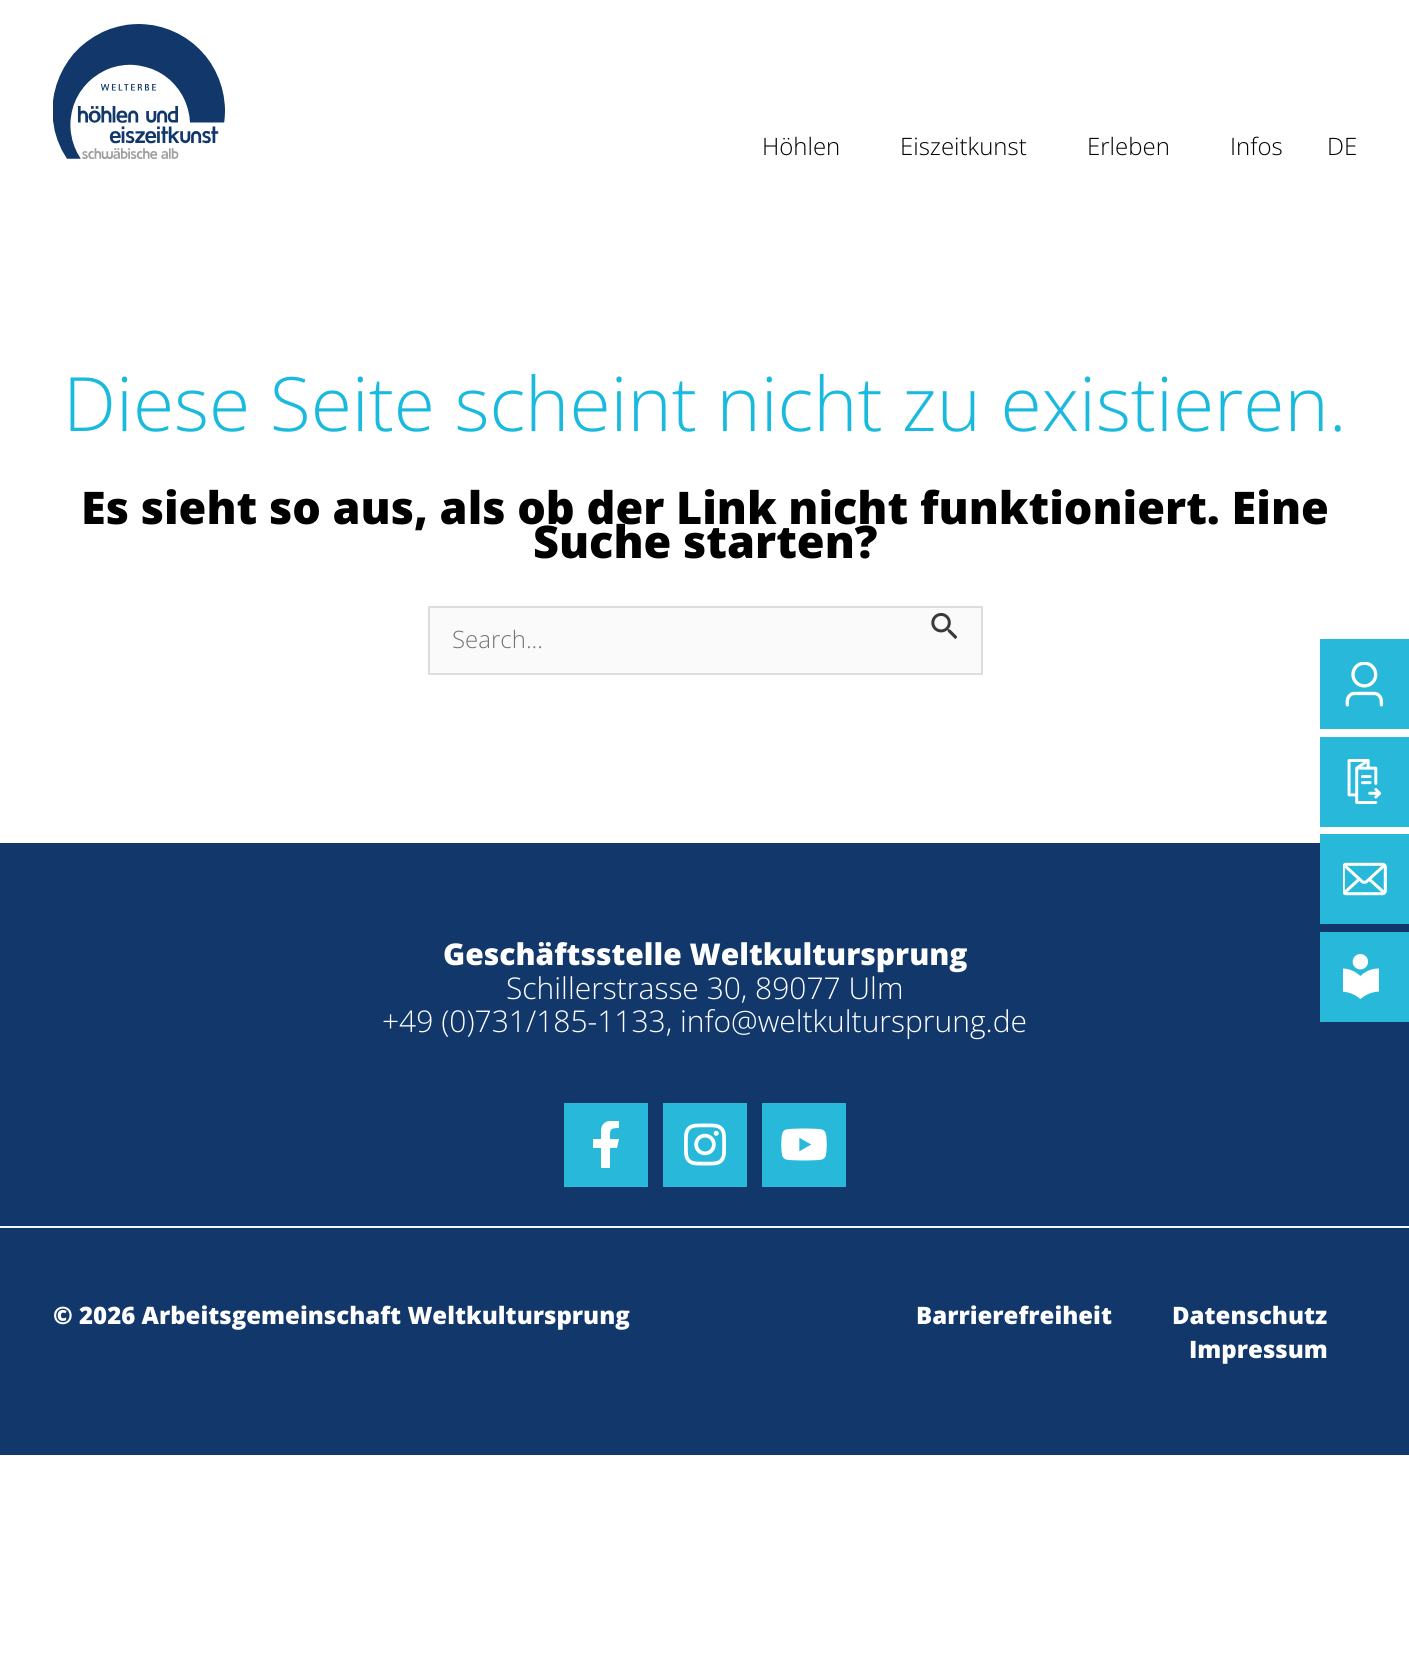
import math
import cairo

surface = cairo.ImageSurface(cairo.FORMAT_RGB24, 1409, 1668)
ctx = cairo.Context(surface)
options = cairo.FontOptions()
options.set_hint_metrics(cairo.HINT_METRICS_OFF)
options.set_hint_style(cairo.HINT_STYLE_NONE)
ctx.set_font_options(options)
ctx.set_miter_limit(4)


def picture(path, x, y, w, h):
    ctx.save()
    ctx.set_source_surface(cairo.ImageSurface.create_from_png(path), x, y)
    ctx.rectangle(x, y, w, h)
    ctx.fill()
    ctx.restore()


ctx.set_source_rgb(1, 1, 1)
ctx.paint()
picture("img1.png", 53, 24, 172, 135)
ctx.select_font_face("Open Sans Light")
ctx.set_font_size(24)
ctx.set_source_rgb(0, 0, 0)
ctx.move_to(762, 155)
ctx.show_text("Höhlen")
ctx.move_to(900, 155)
ctx.show_text("Eiszeitkunst")
ctx.move_to(1087, 155)
ctx.show_text("Erleben")
ctx.move_to(1230, 155)
ctx.show_text("Infos")
ctx.move_to(1327, 155)
ctx.show_text("DE")
ctx.set_font_size(75)
ctx.set_source_rgb(0.098, 0.729, 0.871)
ctx.move_to(63, 431)
ctx.show_text("Diese Seite scheint nicht zu existieren.")
ctx.select_font_face("Open Sans ExtraBold")
ctx.set_font_size(45)
ctx.set_source_rgb(0, 0, 0)
ctx.move_to(81, 524)
ctx.show_text("Es sieht so aus, als ob der Link nicht funktioniert. Eine")
ctx.move_to(533, 558)
ctx.show_text("Suche starten?")
ctx.set_source_rgb(0.98, 0.98, 0.98)
ctx.rectangle(429, 607, 553, 67)
ctx.fill_preserve()
ctx.set_source_rgb(0.867, 0.867, 0.867)
ctx.stroke()
ctx.select_font_face("Open Sans Light")
ctx.set_font_size(24)
ctx.set_source_rgb(0.459, 0.459, 0.459)
ctx.move_to(452, 648)
ctx.show_text("Search...")
picture("img2.png", 931, 612, 26, 28)
ctx.set_source_rgb(0.071, 0.22, 0.42)
ctx.rectangle(0, 843, 1409, 383)
ctx.fill()
ctx.select_font_face("Open Sans ExtraBold")
ctx.set_font_size(30)
ctx.set_source_rgb(1, 1, 1)
ctx.move_to(443, 965)
ctx.show_text("Geschäftsstelle Weltkultursprung")
ctx.select_font_face("Open Sans Light")
ctx.move_to(506, 999)
ctx.show_text("Schillerstrasse 30, 89077 Ulm")
ctx.move_to(382, 1032)
ctx.show_text("+49 (0)731/185-1133, info@weltkultursprung.de")
ctx.set_source_rgb(0.157, 0.725, 0.855)
ctx.rectangle(564, 1103, 84, 84)
ctx.fill()
ctx.save()
ctx.rectangle(582, 1121, 48, 48)
ctx.clip()
ctx.set_source_rgb(1, 1, 1)
ctx.new_path()
ctx.move_to(617, 1148)
ctx.line_to(619, 1139)
ctx.line_to(610, 1139)
ctx.curve_to(610, 1130, 609, 1128, 619, 1128)
ctx.line_to(619, 1121)
ctx.curve_to(611, 1120, 602, 1120, 601, 1130)
ctx.line_to(601, 1139)
ctx.line_to(593, 1139)
ctx.line_to(593, 1148)
ctx.line_to(601, 1148)
ctx.line_to(601, 1168)
ctx.line_to(610, 1168)
ctx.line_to(610, 1148)
ctx.close_path()
ctx.fill()
ctx.restore()
ctx.rectangle(663, 1103, 84, 84)
ctx.fill()
picture("img3.png", 684, 1123, 42, 43)
ctx.rectangle(762, 1103, 84, 84)
ctx.fill()
picture("img4.png", 781, 1128, 46, 33)
ctx.set_source_rgb(0.071, 0.22, 0.42)
ctx.rectangle(0, 1228, 1409, 227)
ctx.fill()
ctx.set_source_rgb(0.949, 0.961, 0.969)
ctx.rectangle(0, 1226, 1409, 2)
ctx.fill()
ctx.select_font_face("Open Sans ExtraBold")
ctx.set_font_size(24)
ctx.set_source_rgb(1, 1, 1)
ctx.move_to(53, 1324)
ctx.show_text("© 2026 Arbeitsgemeinschaft Weltkultursprung")
ctx.move_to(916, 1324)
ctx.show_text("Barrierefreiheit")
ctx.move_to(1172, 1324)
ctx.show_text("Datenschutz")
ctx.move_to(1189, 1358)
ctx.show_text("Impressum")
ctx.set_source_rgb(0.157, 0.725, 0.855)
ctx.rectangle(1320, 639, 89, 90)
ctx.fill()
picture("img5.png", 1345, 662, 39, 45)
ctx.rectangle(1320, 737, 89, 90)
ctx.fill()
picture("img6.png", 1347, 759, 35, 45)
ctx.rectangle(1320, 834, 89, 90)
ctx.fill()
picture("img7.png", 1343, 862, 44, 34)
ctx.rectangle(1320, 932, 89, 90)
ctx.fill()
picture("img8.png", 1343, 954, 36, 45)
surface.write_to_png("page.png")
